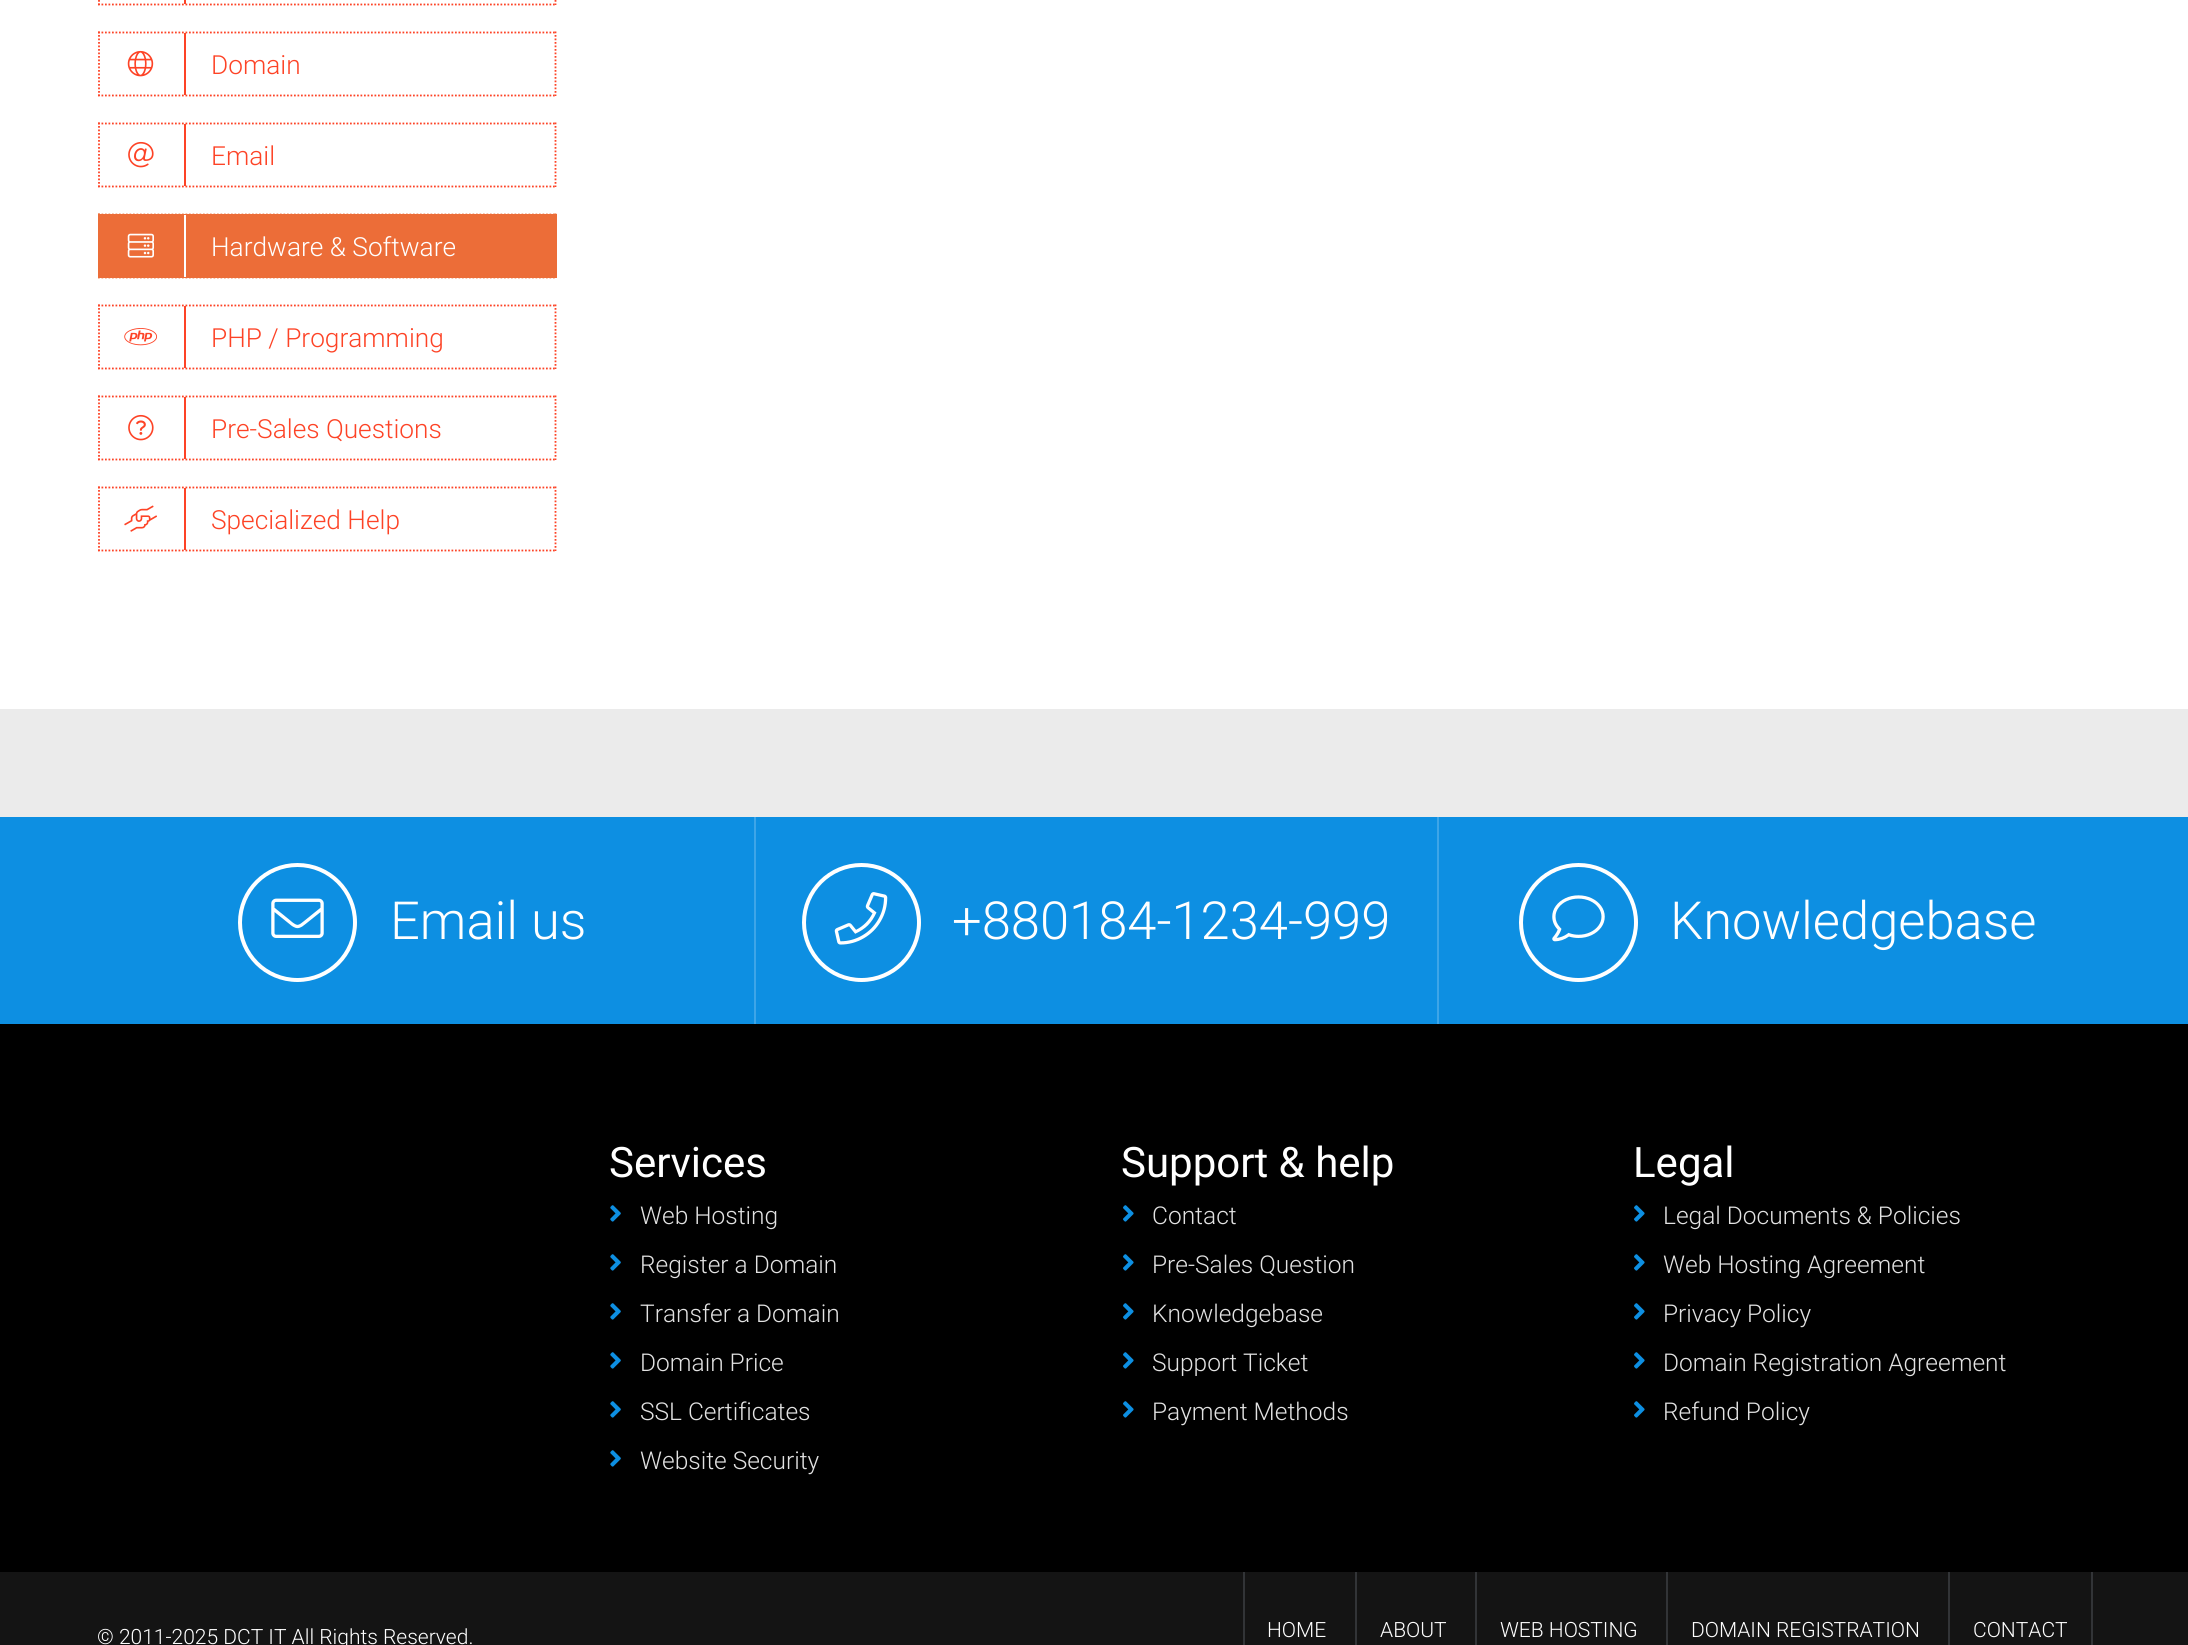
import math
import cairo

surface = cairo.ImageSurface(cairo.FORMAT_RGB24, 2188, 1645)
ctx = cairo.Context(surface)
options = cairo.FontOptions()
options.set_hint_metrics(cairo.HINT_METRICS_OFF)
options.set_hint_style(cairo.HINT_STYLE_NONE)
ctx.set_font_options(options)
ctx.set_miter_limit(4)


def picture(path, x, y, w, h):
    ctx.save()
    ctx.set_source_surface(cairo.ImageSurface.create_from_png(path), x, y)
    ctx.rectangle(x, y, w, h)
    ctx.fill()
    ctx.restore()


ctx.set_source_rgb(1, 1, 1)
ctx.paint()
ctx.new_path()
ctx.move_to(555.5, -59.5)
ctx.line_to(555.5, 5)
ctx.set_source_rgb(0.992, 0.263, 0.149)
ctx.set_line_width(1.8)
ctx.set_dash([1.75, 1.75])
ctx.stroke()
ctx.new_path()
ctx.move_to(98, 4.5)
ctx.line_to(556.5, 4.5)
ctx.stroke()
ctx.new_path()
ctx.move_to(99, -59.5)
ctx.line_to(99, 5)
ctx.stroke()
ctx.rectangle(184, 0, 2, 4)
ctx.fill()
ctx.new_path()
ctx.move_to(98, 32.5)
ctx.line_to(556.5, 32.5)
ctx.stroke()
ctx.new_path()
ctx.move_to(555.5, 31.5)
ctx.line_to(555.5, 96)
ctx.stroke()
ctx.new_path()
ctx.move_to(98, 95.5)
ctx.line_to(556.5, 95.5)
ctx.stroke()
ctx.new_path()
ctx.move_to(99, 31.5)
ctx.line_to(99, 96)
ctx.stroke()
ctx.rectangle(184, 33, 2, 62)
ctx.fill()
picture("img1.png", 127, 50, 27, 27)
ctx.select_font_face("Roboto Light")
ctx.set_font_size(26.25)
ctx.move_to(211, 74)
ctx.show_text("Domain")
ctx.new_path()
ctx.move_to(98, 123.5)
ctx.line_to(556.5, 123.5)
ctx.stroke()
ctx.new_path()
ctx.move_to(555.5, 122.5)
ctx.line_to(555.5, 187)
ctx.stroke()
ctx.new_path()
ctx.move_to(98, 186.5)
ctx.line_to(556.5, 186.5)
ctx.stroke()
ctx.new_path()
ctx.move_to(99, 122.5)
ctx.line_to(99, 187)
ctx.stroke()
ctx.rectangle(184, 124, 2, 62)
ctx.fill()
picture("img2.png", 128, 141, 26, 27)
ctx.move_to(211, 165)
ctx.show_text("Email")
ctx.set_source_rgb(0.925, 0.427, 0.22)
ctx.rectangle(98, 214, 459, 64)
ctx.fill()
ctx.new_path()
ctx.move_to(98, 214.5)
ctx.line_to(556.5, 214.5)
ctx.stroke()
ctx.new_path()
ctx.move_to(555.5, 213.5)
ctx.line_to(555.5, 278)
ctx.stroke()
ctx.new_path()
ctx.move_to(98, 277.5)
ctx.line_to(556.5, 277.5)
ctx.stroke()
ctx.new_path()
ctx.move_to(99, 213.5)
ctx.line_to(99, 278)
ctx.stroke()
ctx.set_source_rgb(1, 1, 1)
ctx.rectangle(184, 215, 2, 62)
ctx.fill()
picture("img3.png", 127, 233, 27, 25)
ctx.move_to(211, 256)
ctx.show_text("Hardware & Software")
ctx.new_path()
ctx.move_to(98, 305.5)
ctx.line_to(556.5, 305.5)
ctx.set_source_rgb(0.992, 0.263, 0.149)
ctx.stroke()
ctx.new_path()
ctx.move_to(555.5, 304.5)
ctx.line_to(555.5, 369)
ctx.stroke()
ctx.new_path()
ctx.move_to(98, 368.5)
ctx.line_to(556.5, 368.5)
ctx.stroke()
ctx.new_path()
ctx.move_to(99, 304.5)
ctx.line_to(99, 369)
ctx.stroke()
ctx.rectangle(184, 306, 2, 62)
ctx.fill()
picture("img4.png", 124, 328, 34, 18)
ctx.move_to(211, 347)
ctx.show_text("PHP / Programming")
ctx.new_path()
ctx.move_to(98, 396.5)
ctx.line_to(556.5, 396.5)
ctx.stroke()
ctx.new_path()
ctx.move_to(555.5, 395.5)
ctx.line_to(555.5, 460)
ctx.stroke()
ctx.new_path()
ctx.move_to(98, 459.5)
ctx.line_to(556.5, 459.5)
ctx.stroke()
ctx.new_path()
ctx.move_to(99, 395.5)
ctx.line_to(99, 460)
ctx.stroke()
ctx.rectangle(184, 397, 2, 62)
ctx.fill()
picture("img5.png", 128, 414, 26, 27)
ctx.move_to(211, 438)
ctx.show_text("Pre-Sales Questions")
ctx.new_path()
ctx.move_to(98, 487.5)
ctx.line_to(556.5, 487.5)
ctx.stroke()
ctx.new_path()
ctx.move_to(555.5, 486.5)
ctx.line_to(555.5, 551)
ctx.stroke()
ctx.new_path()
ctx.move_to(98, 550.5)
ctx.line_to(556.5, 550.5)
ctx.stroke()
ctx.new_path()
ctx.move_to(99, 486.5)
ctx.line_to(99, 551)
ctx.stroke()
ctx.rectangle(184, 488, 2, 62)
ctx.fill()
picture("img6.png", 124, 505, 33, 27)
ctx.move_to(211, 529)
ctx.show_text("Specialized Help")
ctx.set_source_rgb(0.918, 0.918, 0.918)
ctx.rectangle(0, 709, 2188, 108)
ctx.fill()
ctx.set_source_rgb(0.051, 0.561, 0.886)
ctx.rectangle(0, 817, 2188, 207)
ctx.fill()
ctx.arc(297.5, 922.5, 57.5, 0, 2 * math.pi)
ctx.set_source_rgb(1, 1, 1)
ctx.set_line_width(4)
ctx.set_dash([])
ctx.stroke()
picture("img7.png", 271, 898, 53, 40)
ctx.set_font_size(52.5)
ctx.move_to(390, 939)
ctx.show_text("Email us")
ctx.set_source_rgb(0.239, 0.647, 0.91)
ctx.rectangle(754, 817, 2, 207)
ctx.fill()
ctx.arc(861.5, 922.5, 57.5, 0, 2 * math.pi)
ctx.set_source_rgb(1, 1, 1)
ctx.stroke()
picture("img8.png", 834, 892, 54, 53)
ctx.move_to(952, 939)
ctx.show_text("+880184-1234-999")
ctx.set_source_rgb(0.239, 0.647, 0.91)
ctx.rectangle(1437, 817, 2, 207)
ctx.fill()
ctx.arc(1578.5, 922.5, 57.5, 0, 2 * math.pi)
ctx.set_source_rgb(1, 1, 1)
ctx.stroke()
picture("img9.png", 1552, 895, 53, 47)
ctx.move_to(1670, 939)
ctx.show_text("Knowledgebase")
ctx.set_source_rgb(0, 0, 0)
ctx.rectangle(0, 1024, 2188, 548)
ctx.fill()
ctx.select_font_face("Roboto")
ctx.set_font_size(42)
ctx.set_source_rgb(1, 1, 1)
ctx.move_to(609, 1177)
ctx.show_text("Services")
picture("img10.png", 610, 1205, 11, 17)
ctx.select_font_face("Roboto Light")
ctx.set_font_size(24.5)
ctx.set_source_rgb(0.886, 0.886, 0.886)
ctx.move_to(640, 1224)
ctx.show_text("Web Hosting")
picture("img10.png", 610, 1254, 11, 17)
ctx.move_to(640, 1273)
ctx.show_text("Register a Domain")
picture("img10.png", 610, 1303, 11, 17)
ctx.move_to(640, 1322)
ctx.show_text("Transfer a Domain")
picture("img10.png", 610, 1352, 11, 17)
ctx.move_to(640, 1371)
ctx.show_text("Domain Price")
picture("img10.png", 610, 1401, 11, 17)
ctx.move_to(640, 1420)
ctx.show_text("SSL Certificates")
picture("img10.png", 610, 1450, 11, 17)
ctx.move_to(640, 1469)
ctx.show_text("Website Security")
ctx.select_font_face("Roboto")
ctx.set_font_size(42)
ctx.set_source_rgb(1, 1, 1)
ctx.move_to(1121, 1177)
ctx.show_text("Support & help")
picture("img11.png", 1123, 1205, 11, 17)
ctx.select_font_face("Roboto Light")
ctx.set_font_size(24.5)
ctx.set_source_rgb(0.886, 0.886, 0.886)
ctx.move_to(1152, 1224)
ctx.show_text("Contact")
picture("img11.png", 1123, 1254, 11, 17)
ctx.move_to(1152, 1273)
ctx.show_text("Pre-Sales Question")
picture("img11.png", 1123, 1303, 11, 17)
ctx.move_to(1152, 1322)
ctx.show_text("Knowledgebase")
picture("img11.png", 1123, 1352, 11, 17)
ctx.move_to(1152, 1371)
ctx.show_text("Support Ticket")
picture("img11.png", 1123, 1401, 11, 17)
ctx.move_to(1152, 1420)
ctx.show_text("Payment Methods")
ctx.select_font_face("Roboto")
ctx.set_font_size(42)
ctx.set_source_rgb(1, 1, 1)
ctx.move_to(1633, 1177)
ctx.show_text("Legal")
picture("img11.png", 1634, 1205, 11, 17)
ctx.select_font_face("Roboto Light")
ctx.set_font_size(24.5)
ctx.set_source_rgb(0.886, 0.886, 0.886)
ctx.move_to(1663, 1224)
ctx.show_text("Legal Documents & Policies")
picture("img11.png", 1634, 1254, 11, 17)
ctx.move_to(1663, 1273)
ctx.show_text("Web Hosting Agreement")
picture("img11.png", 1634, 1303, 11, 17)
ctx.move_to(1663, 1322)
ctx.show_text("Privacy Policy")
picture("img11.png", 1634, 1352, 11, 17)
ctx.move_to(1663, 1371)
ctx.show_text("Domain Registration Agreement")
picture("img11.png", 1634, 1401, 11, 17)
ctx.move_to(1663, 1420)
ctx.show_text("Refund Policy")
ctx.set_source_rgb(0.082, 0.082, 0.082)
ctx.rectangle(0, 1572, 2188, 73)
ctx.fill()
ctx.set_font_size(21)
ctx.set_source_rgb(1, 1, 1)
ctx.move_to(97, 1644)
ctx.show_text("© 2011-2025 DCT IT All Rights Reserved.")
ctx.set_source_rgb(0.196, 0.204, 0.216)
ctx.rectangle(1243, 1572, 2, 73)
ctx.fill()
ctx.set_source_rgb(1, 1, 1)
ctx.move_to(1267, 1637)
ctx.show_text("HOME")
ctx.set_source_rgb(0.196, 0.204, 0.216)
ctx.rectangle(1355, 1572, 2, 73)
ctx.fill()
ctx.set_source_rgb(1, 1, 1)
ctx.move_to(1380, 1637)
ctx.show_text("ABOUT")
ctx.set_source_rgb(0.196, 0.204, 0.216)
ctx.rectangle(1475, 1572, 2, 73)
ctx.fill()
ctx.set_source_rgb(1, 1, 1)
ctx.move_to(1500, 1637)
ctx.show_text("WEB HOSTING")
ctx.set_source_rgb(0.196, 0.204, 0.216)
ctx.rectangle(1666, 1572, 2, 73)
ctx.fill()
ctx.set_source_rgb(1, 1, 1)
ctx.move_to(1691, 1637)
ctx.show_text("DOMAIN REGISTRATION")
ctx.set_source_rgb(0.196, 0.204, 0.216)
ctx.rectangle(2091, 1572, 2, 73)
ctx.fill()
ctx.rectangle(1948, 1572, 2, 73)
ctx.fill()
ctx.set_source_rgb(1, 1, 1)
ctx.move_to(1973, 1637)
ctx.show_text("CONTACT")
surface.write_to_png("page.png")
